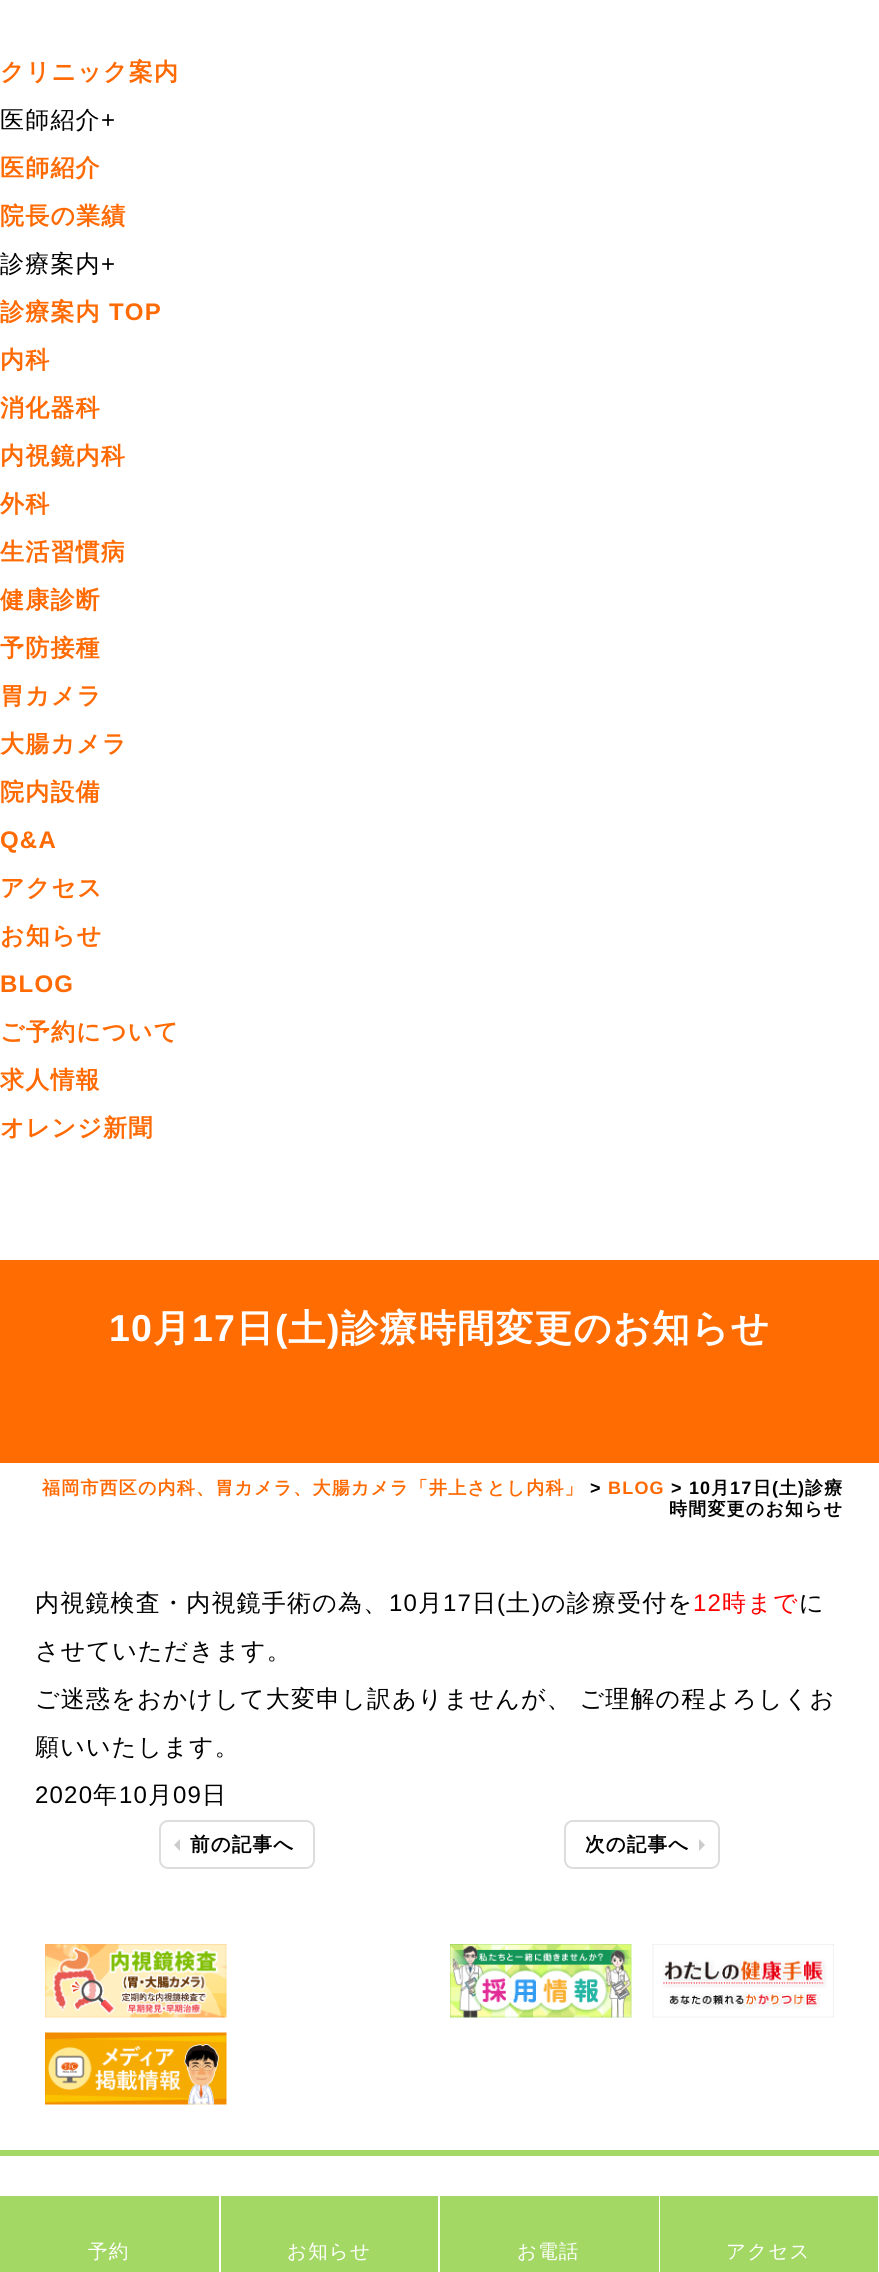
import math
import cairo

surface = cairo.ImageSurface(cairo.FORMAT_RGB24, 879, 2272)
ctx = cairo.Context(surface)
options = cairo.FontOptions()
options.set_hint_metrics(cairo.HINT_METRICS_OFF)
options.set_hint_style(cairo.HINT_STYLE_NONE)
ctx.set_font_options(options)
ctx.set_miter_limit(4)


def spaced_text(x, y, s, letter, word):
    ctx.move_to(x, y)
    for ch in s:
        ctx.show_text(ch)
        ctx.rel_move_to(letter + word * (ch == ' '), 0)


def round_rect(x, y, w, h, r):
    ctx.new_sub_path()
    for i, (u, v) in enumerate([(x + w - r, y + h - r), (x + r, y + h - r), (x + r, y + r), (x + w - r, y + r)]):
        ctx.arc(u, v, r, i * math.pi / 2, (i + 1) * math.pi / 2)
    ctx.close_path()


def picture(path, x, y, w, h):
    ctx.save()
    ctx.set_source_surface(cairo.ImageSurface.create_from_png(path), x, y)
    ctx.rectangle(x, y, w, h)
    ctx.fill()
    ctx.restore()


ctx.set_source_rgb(1, 1, 1)
ctx.paint()
ctx.select_font_face("WenQuanYi Zen Hei", cairo.FONT_SLANT_NORMAL, cairo.FONT_WEIGHT_BOLD)
ctx.set_font_size(24)
ctx.set_source_rgb(1, 0.416, 0.012)
spaced_text(0, 80, "クリニック案内", 1.2, 0)
ctx.select_font_face("WenQuanYi Zen Hei Medium")
ctx.set_source_rgb(0, 0, 0)
spaced_text(0, 128, "医師紹介", 1.2, 0)
ctx.select_font_face("Liberation Sans")
spaced_text(101, 128, "+", 1.2, 0)
ctx.select_font_face("WenQuanYi Zen Hei", cairo.FONT_SLANT_NORMAL, cairo.FONT_WEIGHT_BOLD)
ctx.set_source_rgb(1, 0.416, 0.012)
spaced_text(0, 176, "医師紹介", 1.2, 0)
spaced_text(0, 224, "院長の業績", 1.2, 0)
ctx.select_font_face("WenQuanYi Zen Hei Medium")
ctx.set_source_rgb(0, 0, 0)
spaced_text(0, 272, "診療案内", 1.2, 0)
ctx.select_font_face("Liberation Sans")
spaced_text(101, 272, "+", 1.2, 0)
ctx.select_font_face("WenQuanYi Zen Hei", cairo.FONT_SLANT_NORMAL, cairo.FONT_WEIGHT_BOLD)
ctx.set_source_rgb(1, 0.416, 0.012)
spaced_text(0, 320, "診療案内", 1.2, 0)
ctx.select_font_face("Liberation Sans", cairo.FONT_SLANT_NORMAL, cairo.FONT_WEIGHT_BOLD)
spaced_text(109, 320, "TOP", 1.2, 0)
ctx.select_font_face("WenQuanYi Zen Hei", cairo.FONT_SLANT_NORMAL, cairo.FONT_WEIGHT_BOLD)
spaced_text(0, 368, "内科", 1.2, 0)
spaced_text(0, 416, "消化器科", 1.2, 0)
spaced_text(0, 464, "内視鏡内科", 1.2, 0)
spaced_text(0, 512, "外科", 1.2, 0)
spaced_text(0, 560, "生活習慣病", 1.2, 0)
spaced_text(0, 608, "健康診断", 1.2, 0)
spaced_text(0, 656, "予防接種", 1.2, 0)
spaced_text(0, 704, "胃カメラ", 1.2, 0)
spaced_text(0, 752, "大腸カメラ", 1.2, 0)
spaced_text(0, 800, "院内設備", 1.2, 0)
ctx.select_font_face("Liberation Sans", cairo.FONT_SLANT_NORMAL, cairo.FONT_WEIGHT_BOLD)
spaced_text(0, 848, "Q&A", 1.2, 0)
ctx.select_font_face("WenQuanYi Zen Hei", cairo.FONT_SLANT_NORMAL, cairo.FONT_WEIGHT_BOLD)
spaced_text(0, 896, "アクセス", 1.2, 0)
spaced_text(0, 944, "お知らせ", 1.2, 0)
ctx.select_font_face("Liberation Sans", cairo.FONT_SLANT_NORMAL, cairo.FONT_WEIGHT_BOLD)
spaced_text(0, 992, "BLOG", 1.2, 0)
ctx.select_font_face("WenQuanYi Zen Hei", cairo.FONT_SLANT_NORMAL, cairo.FONT_WEIGHT_BOLD)
spaced_text(0, 1040, "ご予約について", 1.2, 0)
spaced_text(0, 1088, "求人情報", 1.2, 0)
spaced_text(0, 1136, "オレンジ新聞", 1.2, 0)
ctx.set_source_rgb(1, 0.424, 0.008)
ctx.rectangle(0, 1260, 879, 203)
ctx.fill()
ctx.select_font_face("Liberation Sans", cairo.FONT_SLANT_NORMAL, cairo.FONT_WEIGHT_BOLD)
ctx.set_font_size(37.5)
ctx.set_source_rgb(1, 1, 1)
spaced_text(109, 1341, "10", 1.2, 0)
ctx.select_font_face("WenQuanYi Zen Hei", cairo.FONT_SLANT_NORMAL, cairo.FONT_WEIGHT_BOLD)
spaced_text(153, 1341, "月", 1.2, 0)
ctx.select_font_face("Liberation Sans", cairo.FONT_SLANT_NORMAL, cairo.FONT_WEIGHT_BOLD)
spaced_text(192, 1341, "17", 1.2, 0)
ctx.select_font_face("WenQuanYi Zen Hei", cairo.FONT_SLANT_NORMAL, cairo.FONT_WEIGHT_BOLD)
spaced_text(236, 1341, "日", 1.2, 0)
ctx.select_font_face("Liberation Sans", cairo.FONT_SLANT_NORMAL, cairo.FONT_WEIGHT_BOLD)
spaced_text(275, 1341, "(", 1.2, 0)
ctx.select_font_face("WenQuanYi Zen Hei", cairo.FONT_SLANT_NORMAL, cairo.FONT_WEIGHT_BOLD)
spaced_text(288, 1341, "土", 1.2, 0)
ctx.select_font_face("Liberation Sans", cairo.FONT_SLANT_NORMAL, cairo.FONT_WEIGHT_BOLD)
spaced_text(327, 1341, ")", 1.2, 0)
ctx.select_font_face("WenQuanYi Zen Hei", cairo.FONT_SLANT_NORMAL, cairo.FONT_WEIGHT_BOLD)
spaced_text(341, 1341, "診療時間変更のお知らせ", 1.2, 0)
ctx.set_font_size(18)
ctx.set_source_rgb(1, 0.416, 0.012)
spaced_text(42, 1494, "福岡市西区の内科、胃カメラ、大腸カメラ「井上さとし内科」", 1.2, 0)
ctx.select_font_face("Liberation Sans", cairo.FONT_SLANT_NORMAL, cairo.FONT_WEIGHT_BOLD)
ctx.set_source_rgb(0, 0, 0)
spaced_text(590, 1494, ">", 1.2, 0)
ctx.set_source_rgb(1, 0.416, 0.012)
spaced_text(608, 1494, "BLOG", 1.2, 0)
ctx.set_source_rgb(0, 0, 0)
spaced_text(671, 1494, "> 10", 1.2, 0)
ctx.select_font_face("WenQuanYi Zen Hei", cairo.FONT_SLANT_NORMAL, cairo.FONT_WEIGHT_BOLD)
spaced_text(711, 1494, "月", 1.2, 0)
ctx.select_font_face("Liberation Sans", cairo.FONT_SLANT_NORMAL, cairo.FONT_WEIGHT_BOLD)
spaced_text(730, 1494, "17", 1.2, 0)
ctx.select_font_face("WenQuanYi Zen Hei", cairo.FONT_SLANT_NORMAL, cairo.FONT_WEIGHT_BOLD)
spaced_text(753, 1494, "日", 1.2, 0)
ctx.select_font_face("Liberation Sans", cairo.FONT_SLANT_NORMAL, cairo.FONT_WEIGHT_BOLD)
spaced_text(772, 1494, "(", 1.2, 0)
ctx.select_font_face("WenQuanYi Zen Hei", cairo.FONT_SLANT_NORMAL, cairo.FONT_WEIGHT_BOLD)
spaced_text(779, 1494, "土", 1.2, 0)
ctx.select_font_face("Liberation Sans", cairo.FONT_SLANT_NORMAL, cairo.FONT_WEIGHT_BOLD)
spaced_text(798, 1494, ")", 1.2, 0)
ctx.select_font_face("WenQuanYi Zen Hei", cairo.FONT_SLANT_NORMAL, cairo.FONT_WEIGHT_BOLD)
spaced_text(805, 1494, "診療", 1.2, 0)
spaced_text(669, 1515, "時間変更のお知らせ", 1.2, 0)
ctx.select_font_face("WenQuanYi Zen Hei Medium")
ctx.set_font_size(24)
spaced_text(35, 1611, "内視鏡検査・内視鏡手術の為、", 1.2, 0)
ctx.select_font_face("Liberation Sans")
spaced_text(389, 1611, "10", 1.2, 0)
ctx.select_font_face("WenQuanYi Zen Hei Medium")
spaced_text(418, 1611, "月", 1.2, 0)
ctx.select_font_face("Liberation Sans")
spaced_text(443, 1611, "17", 1.2, 0)
ctx.select_font_face("WenQuanYi Zen Hei Medium")
spaced_text(472, 1611, "日", 1.2, 0)
ctx.select_font_face("Liberation Sans")
spaced_text(497, 1611, "(", 1.2, 0)
ctx.select_font_face("WenQuanYi Zen Hei Medium")
spaced_text(506, 1611, "土", 1.2, 0)
ctx.select_font_face("Liberation Sans")
spaced_text(532, 1611, ")", 1.2, 0)
ctx.select_font_face("WenQuanYi Zen Hei Medium")
spaced_text(541, 1611, "の診療受付を", 1.2, 0)
ctx.select_font_face("Liberation Sans")
ctx.set_source_rgb(1, 0, 0)
spaced_text(693, 1611, "12", 1.2, 0)
ctx.select_font_face("WenQuanYi Zen Hei Medium")
spaced_text(722, 1611, "時まで", 1.2, 0)
ctx.set_source_rgb(0, 0, 0)
spaced_text(799, 1611, "に", 1.2, 0)
spaced_text(35, 1659, "させていただきます。", 1.2, 0)
spaced_text(35, 1707, "ご迷惑をおかけして大変申し訳ありませんが、 ご理解の程よろしくお", 1.2, -1)
spaced_text(35, 1755, "願いいたします。", 1.2, 0)
ctx.select_font_face("Liberation Sans")
spaced_text(35, 1803, "2020", 1.2, 0)
ctx.select_font_face("WenQuanYi Zen Hei Medium")
spaced_text(93, 1803, "年", 1.2, 0)
ctx.select_font_face("Liberation Sans")
spaced_text(119, 1803, "10", 1.2, 0)
ctx.select_font_face("WenQuanYi Zen Hei Medium")
spaced_text(148, 1803, "月", 1.2, 0)
ctx.select_font_face("Liberation Sans")
spaced_text(173, 1803, "09", 1.2, 0)
ctx.select_font_face("WenQuanYi Zen Hei Medium")
spaced_text(202, 1803, "日", 1.2, 0)
round_rect(160, 1821, 154, 47, 8)
ctx.set_source_rgb(0.867, 0.867, 0.867)
ctx.stroke()
ctx.set_source_rgb(0.8, 0.8, 0.8)
ctx.new_path()
ctx.move_to(180, 1839)
ctx.line_to(180, 1851)
ctx.line_to(174, 1845)
ctx.close_path()
ctx.fill()
ctx.select_font_face("WenQuanYi Zen Hei", cairo.FONT_SLANT_NORMAL, cairo.FONT_WEIGHT_BOLD)
ctx.set_font_size(19.5)
ctx.set_source_rgb(0, 0, 0)
spaced_text(190, 1851, "前の記事へ", 1.2, 0)
round_rect(565, 1821, 154, 47, 8)
ctx.set_source_rgb(0.867, 0.867, 0.867)
ctx.stroke()
ctx.set_source_rgb(0, 0, 0)
spaced_text(585, 1851, "次の記事へ", 1.2, 0)
ctx.set_source_rgb(0.8, 0.8, 0.8)
ctx.new_path()
ctx.move_to(699, 1851)
ctx.line_to(699, 1839)
ctx.line_to(705, 1845)
ctx.close_path()
ctx.fill()
picture("img1.png", 45, 1944, 182, 74)
picture("img2.png", 450, 1944, 182, 74)
picture("img3.png", 652, 1944, 182, 74)
picture("img4.png", 45, 2032, 182, 73)
ctx.set_source_rgb(0.639, 0.847, 0.396)
ctx.rectangle(0, 2150, 879, 6)
ctx.fill()
ctx.rectangle(0, 2196, 219, 76)
ctx.fill()
ctx.select_font_face("WenQuanYi Zen Hei Medium")
ctx.set_source_rgb(1, 1, 1)
spaced_text(88, 2258, "予約", 1.2, 0)
ctx.set_source_rgb(0.639, 0.847, 0.396)
ctx.rectangle(221, 2196, 217, 76)
ctx.fill()
ctx.set_source_rgb(1, 1, 1)
spaced_text(287, 2258, "お知らせ", 1.2, 0)
ctx.set_source_rgb(0.639, 0.847, 0.396)
ctx.rectangle(440, 2196, 219, 76)
ctx.fill()
ctx.set_source_rgb(1, 1, 1)
spaced_text(517, 2258, "お電話", 1.2, 0)
ctx.set_source_rgb(0.639, 0.847, 0.396)
ctx.rectangle(660, 2196, 218, 76)
ctx.fill()
ctx.set_source_rgb(1, 1, 1)
spaced_text(726, 2258, "アクセス", 1.2, 0)
surface.write_to_png("page.png")
